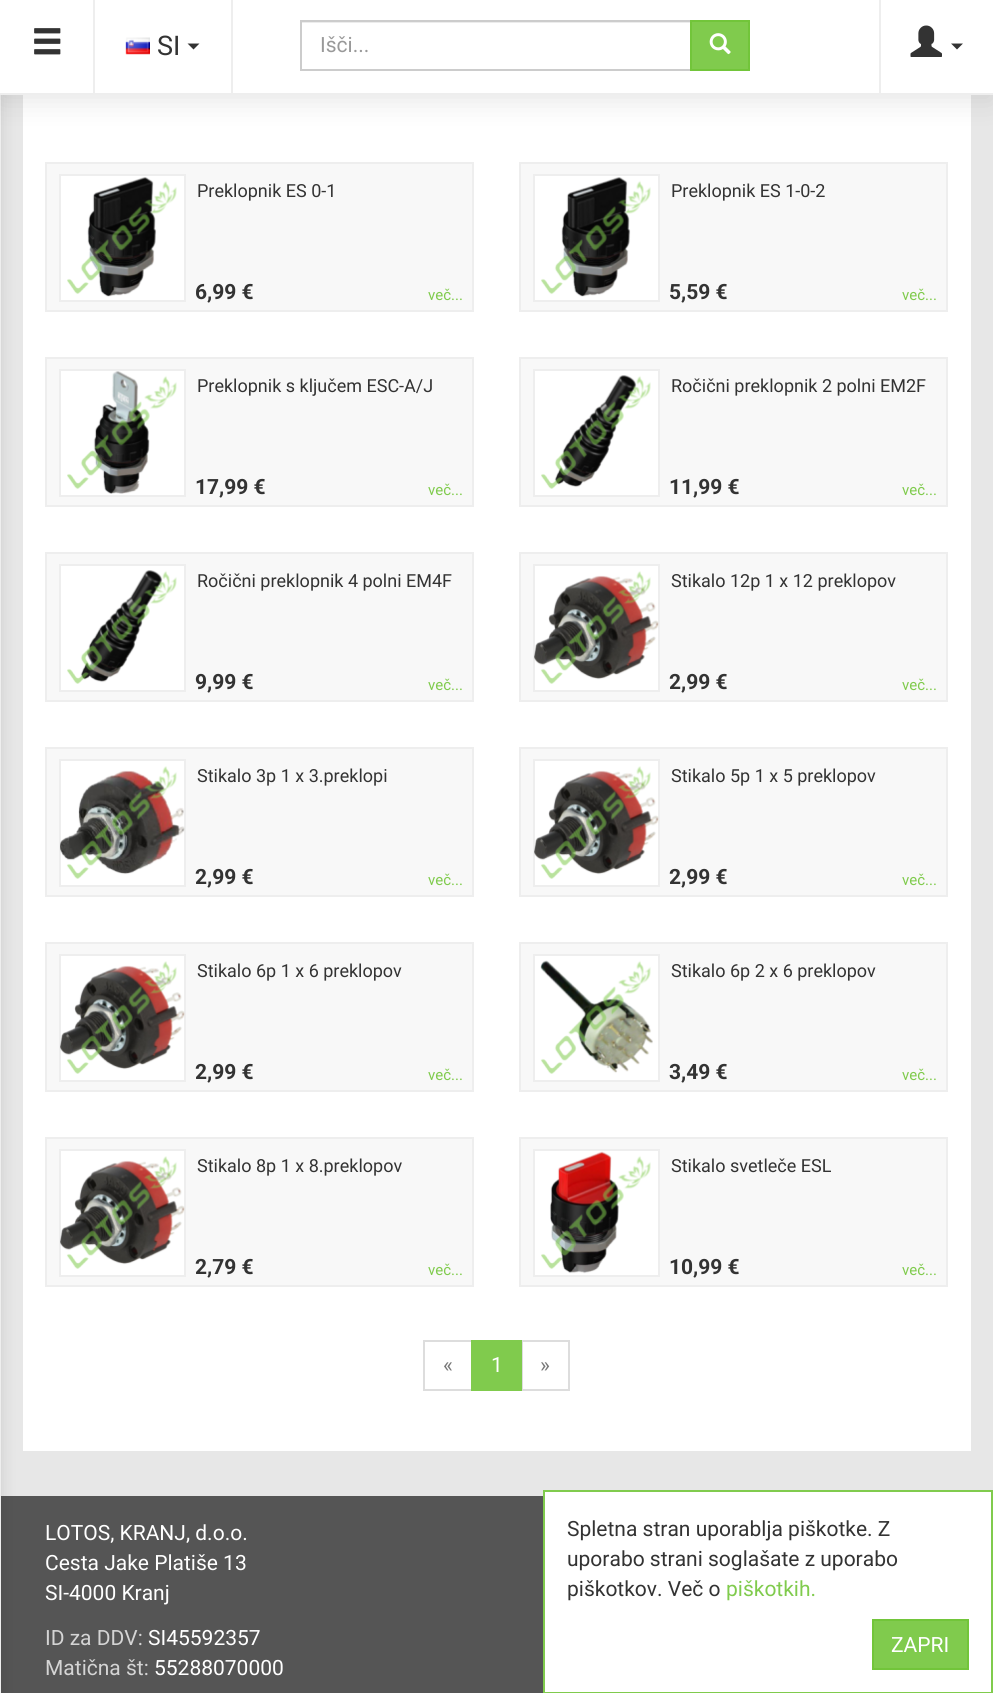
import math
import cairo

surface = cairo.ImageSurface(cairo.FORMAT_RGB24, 993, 1693)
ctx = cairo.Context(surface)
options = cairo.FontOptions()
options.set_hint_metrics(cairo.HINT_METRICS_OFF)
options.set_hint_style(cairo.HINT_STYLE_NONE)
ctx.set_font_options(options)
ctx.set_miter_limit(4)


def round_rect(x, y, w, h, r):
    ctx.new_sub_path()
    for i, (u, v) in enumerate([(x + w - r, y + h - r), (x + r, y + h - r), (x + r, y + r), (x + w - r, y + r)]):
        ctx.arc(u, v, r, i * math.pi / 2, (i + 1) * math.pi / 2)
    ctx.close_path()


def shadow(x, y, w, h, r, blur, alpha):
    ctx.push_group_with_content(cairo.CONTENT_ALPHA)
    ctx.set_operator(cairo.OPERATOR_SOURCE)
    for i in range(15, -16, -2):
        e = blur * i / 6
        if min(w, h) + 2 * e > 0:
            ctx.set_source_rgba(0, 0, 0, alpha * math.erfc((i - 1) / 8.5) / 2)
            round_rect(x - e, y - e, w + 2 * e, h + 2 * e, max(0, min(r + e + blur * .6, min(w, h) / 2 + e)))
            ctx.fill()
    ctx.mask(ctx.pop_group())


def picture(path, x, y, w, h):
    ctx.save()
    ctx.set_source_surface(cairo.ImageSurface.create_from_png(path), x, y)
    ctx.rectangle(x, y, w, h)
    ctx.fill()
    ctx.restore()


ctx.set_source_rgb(0.333, 0.333, 0.333)
ctx.paint()
ctx.set_source_rgb(0.906, 0.906, 0.906)
ctx.rectangle(1, 95, 992, 1401)
ctx.fill()
ctx.set_source_rgb(1, 1, 1)
ctx.rectangle(23, 95, 948, 1356)
ctx.fill()
ctx.set_source_rgb(0, 0, 0)
shadow(-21, 0, 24, 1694, 0, 7, 0.1)
ctx.set_source_rgb(0.933, 0.933, 0.933)
ctx.rectangle(0, 95, 1, 1598)
ctx.fill()
ctx.set_source_rgb(0, 0, 0)
shadow(0, 6, 993, 95, 0, 13.5, 0.1)
ctx.set_source_rgb(1, 1, 1)
ctx.rectangle(0, 0, 993, 93)
ctx.fill()
ctx.set_source_rgb(0.933, 0.933, 0.933)
ctx.rectangle(0, 93, 993, 2)
ctx.fill()
ctx.rectangle(93, 0, 2, 95)
ctx.fill()
picture("img1.png", 34, 28, 27, 27)
ctx.rectangle(231, 0, 2, 95)
ctx.fill()
picture("img2.png", 125, 37, 25, 18)
ctx.select_font_face("Roboto")
ctx.set_font_size(27)
ctx.set_source_rgb(0.2, 0.2, 0.2)
ctx.move_to(157, 55)
ctx.show_text("SI")
ctx.new_path()
ctx.move_to(187.5, 43.5)
ctx.line_to(199.5, 43.5)
ctx.line_to(193.5, 49.5)
ctx.close_path()
ctx.fill()
ctx.set_source_rgb(0.925, 0.925, 0.925)
ctx.rectangle(302, 22, 388, 1)
ctx.fill()
ctx.rectangle(301, 21, 390, 49)
ctx.set_source_rgb(0.8, 0.8, 0.8)
ctx.stroke()
ctx.set_font_size(21)
ctx.set_source_rgb(0.6, 0.6, 0.6)
ctx.move_to(320, 52)
ctx.show_text("Išči...")
ctx.set_source_rgb(0.502, 0.796, 0.302)
ctx.rectangle(691, 21, 58, 49)
ctx.fill_preserve()
ctx.set_source_rgb(0.447, 0.773, 0.227)
ctx.stroke()
picture("img3.png", 709, 33, 22, 22)
ctx.set_source_rgb(0.933, 0.933, 0.933)
ctx.rectangle(879, 0, 2, 95)
ctx.fill()
picture("img4.png", 910, 25, 32, 32)
ctx.set_source_rgb(0.2, 0.2, 0.2)
ctx.new_path()
ctx.move_to(951, 43.5)
ctx.line_to(963, 43.5)
ctx.line_to(957, 49.5)
ctx.close_path()
ctx.fill()
ctx.set_source_rgb(0.969, 0.969, 0.969)
ctx.rectangle(46, 163, 427, 148)
ctx.fill_preserve()
ctx.set_source_rgb(0.933, 0.933, 0.933)
ctx.stroke()
ctx.set_source_rgb(1, 1, 1)
ctx.rectangle(60, 175, 125, 126)
ctx.fill_preserve()
ctx.set_source_rgb(0.933, 0.933, 0.933)
ctx.stroke()
picture("img5.png", 67, 177, 110, 120)
ctx.set_font_size(18)
ctx.set_source_rgb(0.2, 0.2, 0.2)
ctx.move_to(197, 197)
ctx.show_text("Preklopnik ES 0-1")
ctx.select_font_face("Roboto", cairo.FONT_SLANT_NORMAL, cairo.FONT_WEIGHT_BOLD)
ctx.set_font_size(21)
ctx.move_to(195, 299)
ctx.show_text("6,99 €")
ctx.select_font_face("Roboto")
ctx.set_font_size(15)
ctx.set_source_rgb(0.502, 0.796, 0.302)
ctx.move_to(428, 300)
ctx.show_text("več...")
ctx.set_source_rgb(0.969, 0.969, 0.969)
ctx.rectangle(520, 163, 427, 148)
ctx.fill_preserve()
ctx.set_source_rgb(0.933, 0.933, 0.933)
ctx.stroke()
ctx.set_source_rgb(1, 1, 1)
ctx.rectangle(534, 175, 125, 126)
ctx.fill_preserve()
ctx.set_source_rgb(0.933, 0.933, 0.933)
ctx.stroke()
picture("img5.png", 541, 177, 110, 120)
ctx.set_font_size(18)
ctx.set_source_rgb(0.2, 0.2, 0.2)
ctx.move_to(671, 197)
ctx.show_text("Preklopnik ES 1-0-2")
ctx.select_font_face("Roboto", cairo.FONT_SLANT_NORMAL, cairo.FONT_WEIGHT_BOLD)
ctx.set_font_size(21)
ctx.move_to(669, 299)
ctx.show_text("5,59 €")
ctx.select_font_face("Roboto")
ctx.set_font_size(15)
ctx.set_source_rgb(0.502, 0.796, 0.302)
ctx.move_to(902, 300)
ctx.show_text("več...")
ctx.set_source_rgb(0.969, 0.969, 0.969)
ctx.rectangle(46, 358, 427, 148)
ctx.fill_preserve()
ctx.set_source_rgb(0.933, 0.933, 0.933)
ctx.stroke()
ctx.set_source_rgb(1, 1, 1)
ctx.rectangle(60, 370, 125, 126)
ctx.fill_preserve()
ctx.set_source_rgb(0.933, 0.933, 0.933)
ctx.stroke()
picture("img6.png", 67, 371, 110, 123)
ctx.set_font_size(18)
ctx.set_source_rgb(0.2, 0.2, 0.2)
ctx.move_to(197, 392)
ctx.show_text("Preklopnik s ključem ESC-A/J")
ctx.select_font_face("Roboto", cairo.FONT_SLANT_NORMAL, cairo.FONT_WEIGHT_BOLD)
ctx.set_font_size(21)
ctx.move_to(195, 494)
ctx.show_text("17,99 €")
ctx.select_font_face("Roboto")
ctx.set_font_size(15)
ctx.set_source_rgb(0.502, 0.796, 0.302)
ctx.move_to(428, 495)
ctx.show_text("več...")
ctx.set_source_rgb(0.969, 0.969, 0.969)
ctx.rectangle(520, 358, 427, 148)
ctx.fill_preserve()
ctx.set_source_rgb(0.933, 0.933, 0.933)
ctx.stroke()
ctx.set_source_rgb(1, 1, 1)
ctx.rectangle(534, 370, 125, 126)
ctx.fill_preserve()
ctx.set_source_rgb(0.933, 0.933, 0.933)
ctx.stroke()
picture("img7.png", 541, 375, 110, 114)
ctx.set_font_size(18)
ctx.set_source_rgb(0.2, 0.2, 0.2)
ctx.move_to(671, 392)
ctx.show_text("Ročični preklopnik 2 polni EM2F")
ctx.select_font_face("Roboto", cairo.FONT_SLANT_NORMAL, cairo.FONT_WEIGHT_BOLD)
ctx.set_font_size(21)
ctx.move_to(669, 494)
ctx.show_text("11,99 €")
ctx.select_font_face("Roboto")
ctx.set_font_size(15)
ctx.set_source_rgb(0.502, 0.796, 0.302)
ctx.move_to(902, 495)
ctx.show_text("več...")
ctx.set_source_rgb(0.969, 0.969, 0.969)
ctx.rectangle(46, 553, 427, 148)
ctx.fill_preserve()
ctx.set_source_rgb(0.933, 0.933, 0.933)
ctx.stroke()
ctx.set_source_rgb(1, 1, 1)
ctx.rectangle(60, 565, 125, 126)
ctx.fill_preserve()
ctx.set_source_rgb(0.933, 0.933, 0.933)
ctx.stroke()
picture("img7.png", 67, 570, 110, 114)
ctx.set_font_size(18)
ctx.set_source_rgb(0.2, 0.2, 0.2)
ctx.move_to(197, 587)
ctx.show_text("Ročični preklopnik 4 polni EM4F")
ctx.select_font_face("Roboto", cairo.FONT_SLANT_NORMAL, cairo.FONT_WEIGHT_BOLD)
ctx.set_font_size(21)
ctx.move_to(195, 689)
ctx.show_text("9,99 €")
ctx.select_font_face("Roboto")
ctx.set_font_size(15)
ctx.set_source_rgb(0.502, 0.796, 0.302)
ctx.move_to(428, 690)
ctx.show_text("več...")
ctx.set_source_rgb(0.969, 0.969, 0.969)
ctx.rectangle(520, 553, 427, 148)
ctx.fill_preserve()
ctx.set_source_rgb(0.933, 0.933, 0.933)
ctx.stroke()
ctx.set_source_rgb(1, 1, 1)
ctx.rectangle(534, 565, 125, 126)
ctx.fill_preserve()
ctx.set_source_rgb(0.933, 0.933, 0.933)
ctx.stroke()
picture("img8.png", 534, 571, 125, 113)
ctx.set_font_size(18)
ctx.set_source_rgb(0.2, 0.2, 0.2)
ctx.move_to(671, 587)
ctx.show_text("Stikalo 12p 1 x 12 preklopov")
ctx.select_font_face("Roboto", cairo.FONT_SLANT_NORMAL, cairo.FONT_WEIGHT_BOLD)
ctx.set_font_size(21)
ctx.move_to(669, 689)
ctx.show_text("2,99 €")
ctx.select_font_face("Roboto")
ctx.set_font_size(15)
ctx.set_source_rgb(0.502, 0.796, 0.302)
ctx.move_to(902, 690)
ctx.show_text("več...")
ctx.set_source_rgb(0.969, 0.969, 0.969)
ctx.rectangle(46, 748, 427, 148)
ctx.fill_preserve()
ctx.set_source_rgb(0.933, 0.933, 0.933)
ctx.stroke()
ctx.set_source_rgb(1, 1, 1)
ctx.rectangle(60, 760, 125, 126)
ctx.fill_preserve()
ctx.set_source_rgb(0.933, 0.933, 0.933)
ctx.stroke()
picture("img9.png", 60, 766, 125, 113)
ctx.set_font_size(18)
ctx.set_source_rgb(0.2, 0.2, 0.2)
ctx.move_to(197, 782)
ctx.show_text("Stikalo 3p 1 x 3.preklopi")
ctx.select_font_face("Roboto", cairo.FONT_SLANT_NORMAL, cairo.FONT_WEIGHT_BOLD)
ctx.set_font_size(21)
ctx.move_to(195, 884)
ctx.show_text("2,99 €")
ctx.select_font_face("Roboto")
ctx.set_font_size(15)
ctx.set_source_rgb(0.502, 0.796, 0.302)
ctx.move_to(428, 885)
ctx.show_text("več...")
ctx.set_source_rgb(0.969, 0.969, 0.969)
ctx.rectangle(520, 748, 427, 148)
ctx.fill_preserve()
ctx.set_source_rgb(0.933, 0.933, 0.933)
ctx.stroke()
ctx.set_source_rgb(1, 1, 1)
ctx.rectangle(534, 760, 125, 126)
ctx.fill_preserve()
ctx.set_source_rgb(0.933, 0.933, 0.933)
ctx.stroke()
picture("img8.png", 534, 766, 125, 113)
ctx.set_font_size(18)
ctx.set_source_rgb(0.2, 0.2, 0.2)
ctx.move_to(671, 782)
ctx.show_text("Stikalo 5p 1 x 5 preklopov")
ctx.select_font_face("Roboto", cairo.FONT_SLANT_NORMAL, cairo.FONT_WEIGHT_BOLD)
ctx.set_font_size(21)
ctx.move_to(669, 884)
ctx.show_text("2,99 €")
ctx.select_font_face("Roboto")
ctx.set_font_size(15)
ctx.set_source_rgb(0.502, 0.796, 0.302)
ctx.move_to(902, 885)
ctx.show_text("več...")
ctx.set_source_rgb(0.969, 0.969, 0.969)
ctx.rectangle(46, 943, 427, 148)
ctx.fill_preserve()
ctx.set_source_rgb(0.933, 0.933, 0.933)
ctx.stroke()
ctx.set_source_rgb(1, 1, 1)
ctx.rectangle(60, 955, 125, 126)
ctx.fill_preserve()
ctx.set_source_rgb(0.933, 0.933, 0.933)
ctx.stroke()
picture("img8.png", 60, 961, 125, 113)
ctx.set_font_size(18)
ctx.set_source_rgb(0.2, 0.2, 0.2)
ctx.move_to(197, 977)
ctx.show_text("Stikalo 6p 1 x 6 preklopov")
ctx.select_font_face("Roboto", cairo.FONT_SLANT_NORMAL, cairo.FONT_WEIGHT_BOLD)
ctx.set_font_size(21)
ctx.move_to(195, 1079)
ctx.show_text("2,99 €")
ctx.select_font_face("Roboto")
ctx.set_font_size(15)
ctx.set_source_rgb(0.502, 0.796, 0.302)
ctx.move_to(428, 1080)
ctx.show_text("več...")
ctx.set_source_rgb(0.969, 0.969, 0.969)
ctx.rectangle(520, 943, 427, 148)
ctx.fill_preserve()
ctx.set_source_rgb(0.933, 0.933, 0.933)
ctx.stroke()
ctx.set_source_rgb(1, 1, 1)
ctx.rectangle(534, 955, 125, 126)
ctx.fill_preserve()
ctx.set_source_rgb(0.933, 0.933, 0.933)
ctx.stroke()
picture("img10.png", 540, 960, 113, 114)
ctx.set_font_size(18)
ctx.set_source_rgb(0.2, 0.2, 0.2)
ctx.move_to(671, 977)
ctx.show_text("Stikalo 6p 2 x 6 preklopov")
ctx.select_font_face("Roboto", cairo.FONT_SLANT_NORMAL, cairo.FONT_WEIGHT_BOLD)
ctx.set_font_size(21)
ctx.move_to(669, 1079)
ctx.show_text("3,49 €")
ctx.select_font_face("Roboto")
ctx.set_font_size(15)
ctx.set_source_rgb(0.502, 0.796, 0.302)
ctx.move_to(902, 1080)
ctx.show_text("več...")
ctx.set_source_rgb(0.969, 0.969, 0.969)
ctx.rectangle(46, 1138, 427, 148)
ctx.fill_preserve()
ctx.set_source_rgb(0.933, 0.933, 0.933)
ctx.stroke()
ctx.set_source_rgb(1, 1, 1)
ctx.rectangle(60, 1150, 125, 126)
ctx.fill_preserve()
ctx.set_source_rgb(0.933, 0.933, 0.933)
ctx.stroke()
picture("img8.png", 60, 1156, 125, 113)
ctx.set_font_size(18)
ctx.set_source_rgb(0.2, 0.2, 0.2)
ctx.move_to(197, 1172)
ctx.show_text("Stikalo 8p 1 x 8.preklopov")
ctx.select_font_face("Roboto", cairo.FONT_SLANT_NORMAL, cairo.FONT_WEIGHT_BOLD)
ctx.set_font_size(21)
ctx.move_to(195, 1274)
ctx.show_text("2,79 €")
ctx.select_font_face("Roboto")
ctx.set_font_size(15)
ctx.set_source_rgb(0.502, 0.796, 0.302)
ctx.move_to(428, 1275)
ctx.show_text("več...")
ctx.set_source_rgb(0.969, 0.969, 0.969)
ctx.rectangle(520, 1138, 427, 148)
ctx.fill_preserve()
ctx.set_source_rgb(0.933, 0.933, 0.933)
ctx.stroke()
ctx.set_source_rgb(1, 1, 1)
ctx.rectangle(534, 1150, 125, 126)
ctx.fill_preserve()
ctx.set_source_rgb(0.933, 0.933, 0.933)
ctx.stroke()
picture("img11.png", 541, 1151, 110, 123)
ctx.set_font_size(18)
ctx.set_source_rgb(0.2, 0.2, 0.2)
ctx.move_to(671, 1172)
ctx.show_text("Stikalo svetleče ESL")
ctx.select_font_face("Roboto", cairo.FONT_SLANT_NORMAL, cairo.FONT_WEIGHT_BOLD)
ctx.set_font_size(21)
ctx.move_to(669, 1274)
ctx.show_text("10,99 €")
ctx.select_font_face("Roboto")
ctx.set_font_size(15)
ctx.set_source_rgb(0.502, 0.796, 0.302)
ctx.move_to(902, 1275)
ctx.show_text("več...")
ctx.rectangle(424, 1341, 48, 49)
ctx.set_source_rgb(0.867, 0.867, 0.867)
ctx.stroke()
ctx.set_font_size(21)
ctx.set_source_rgb(0.467, 0.467, 0.467)
ctx.move_to(443, 1372)
ctx.show_text("«")
ctx.rectangle(522, 1341, 47, 49)
ctx.set_source_rgb(0.867, 0.867, 0.867)
ctx.stroke()
ctx.set_source_rgb(0.502, 0.796, 0.302)
ctx.rectangle(471, 1340, 51, 51)
ctx.fill()
ctx.set_source_rgb(1, 1, 1)
ctx.move_to(491, 1372)
ctx.show_text("1")
ctx.set_source_rgb(0.467, 0.467, 0.467)
ctx.move_to(540, 1372)
ctx.show_text("»")
ctx.set_source_rgb(1, 1, 1)
ctx.move_to(45, 1540)
ctx.show_text("LOTOS, KRANJ, d.o.o.")
ctx.move_to(45, 1570)
ctx.show_text("Cesta Jake Platiše 13")
ctx.move_to(45, 1600)
ctx.show_text("SI-4000 Kranj")
ctx.set_source_rgb(0.831, 0.831, 0.831)
ctx.move_to(45, 1645)
ctx.show_text("ID za DDV:")
ctx.set_source_rgb(1, 1, 1)
ctx.move_to(148, 1645)
ctx.show_text("SI45592357")
ctx.set_source_rgb(0.831, 0.831, 0.831)
ctx.move_to(45, 1675)
ctx.show_text("Matična št:")
ctx.set_source_rgb(1, 1, 1)
ctx.move_to(154, 1675)
ctx.show_text("55288070000")
ctx.rectangle(544, 1491, 448, 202)
ctx.fill_preserve()
ctx.set_source_rgb(0.502, 0.796, 0.302)
ctx.stroke()
ctx.set_source_rgb(0.2, 0.2, 0.2)
ctx.move_to(567, 1536)
ctx.show_text("Spletna stran uporablja piškotke. Z")
ctx.move_to(567, 1566)
ctx.show_text("uporabo strani soglašate z uporabo")
ctx.move_to(567, 1596)
ctx.show_text("piškotkov. Več o")
ctx.set_source_rgb(0.502, 0.796, 0.302)
ctx.move_to(726, 1596)
ctx.show_text("piškotkih.")
ctx.rectangle(873, 1620, 95, 49)
ctx.fill_preserve()
ctx.set_source_rgb(0.447, 0.773, 0.227)
ctx.stroke()
ctx.set_source_rgb(1, 1, 1)
ctx.move_to(891, 1652)
ctx.show_text("ZAPRI")
surface.write_to_png("page.png")
